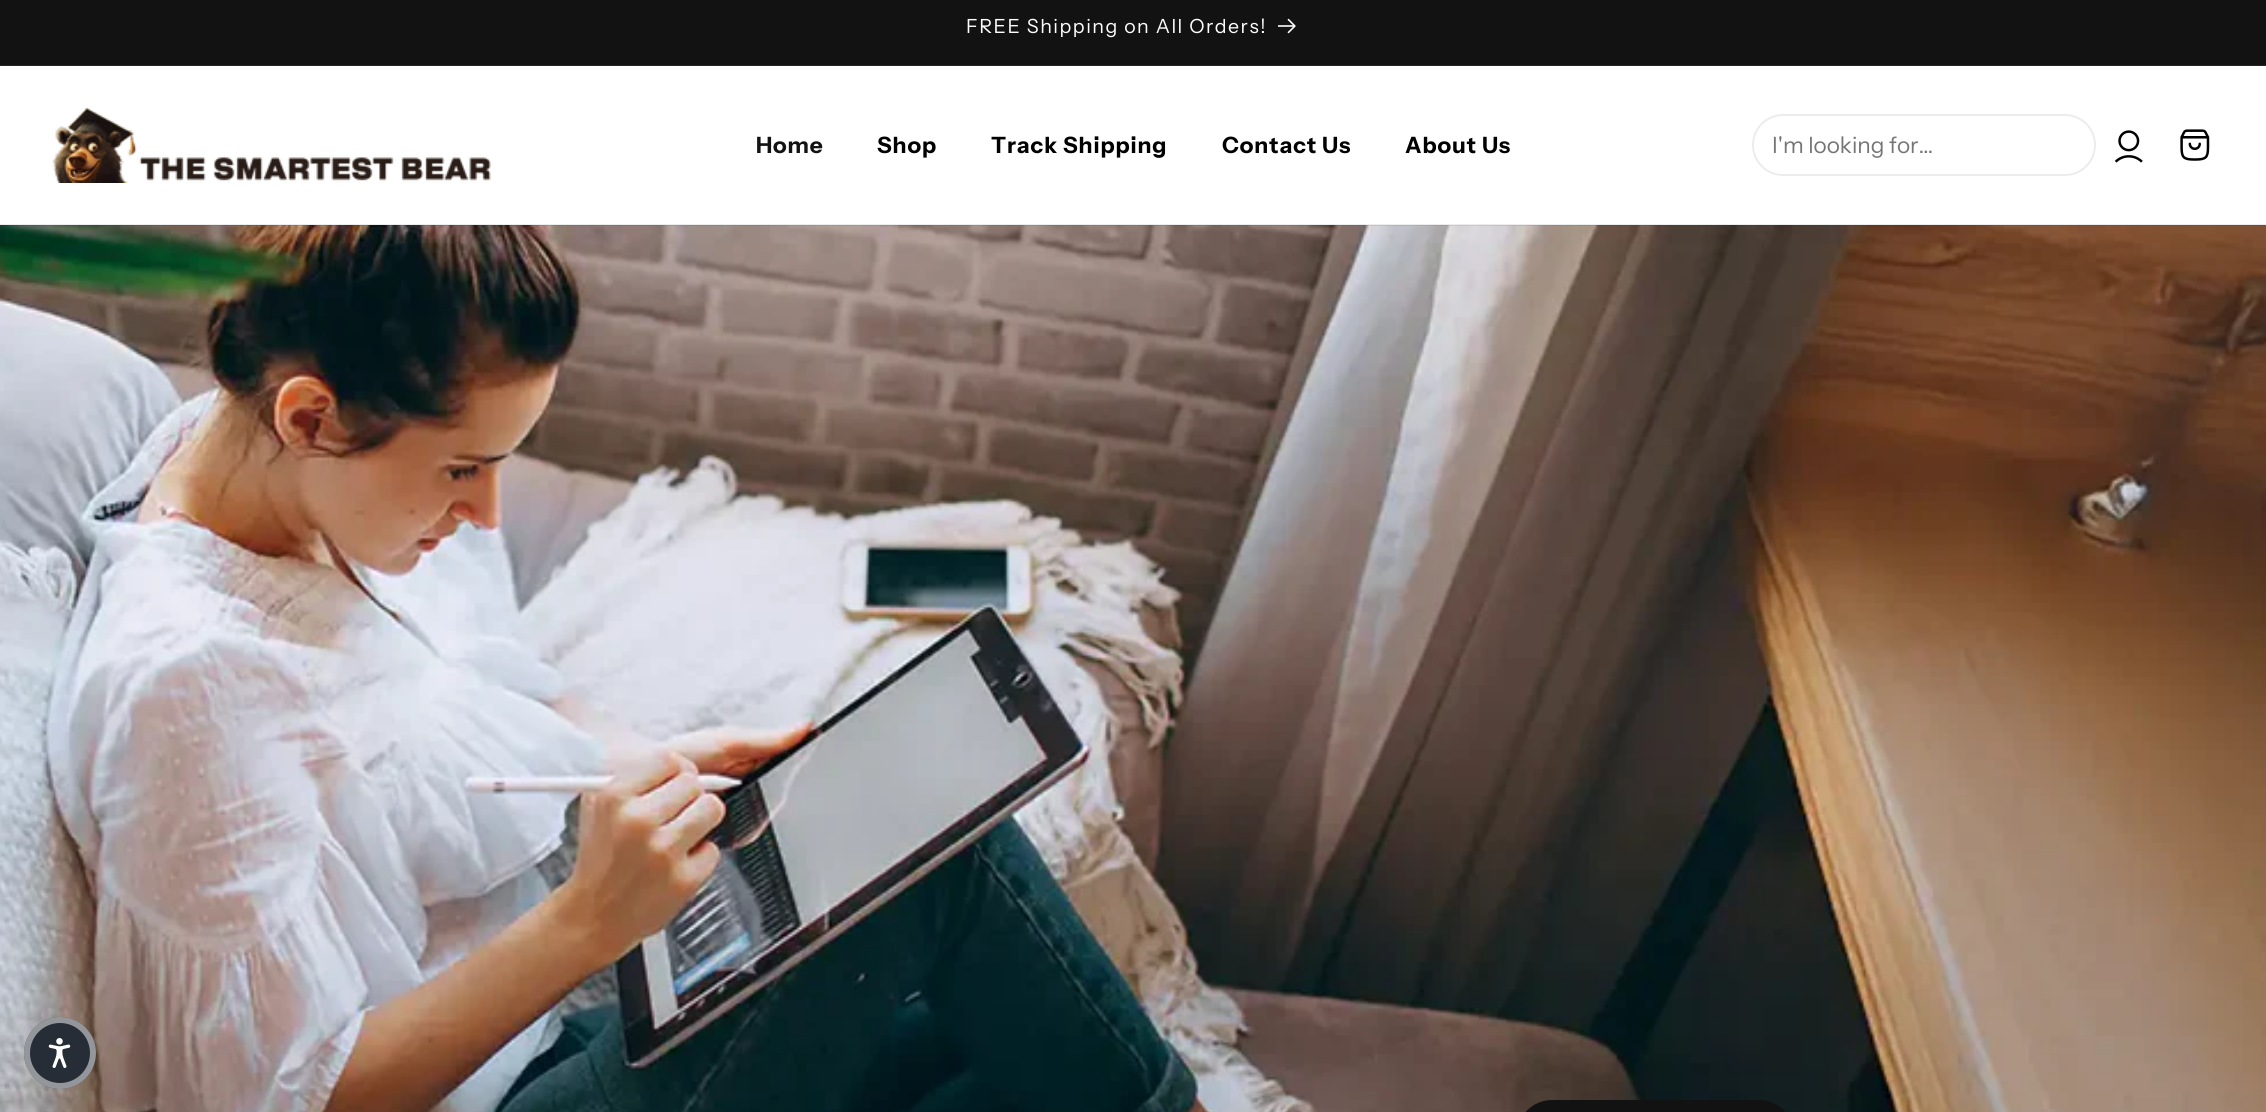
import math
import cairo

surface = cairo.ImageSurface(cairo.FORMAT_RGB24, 2266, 1112)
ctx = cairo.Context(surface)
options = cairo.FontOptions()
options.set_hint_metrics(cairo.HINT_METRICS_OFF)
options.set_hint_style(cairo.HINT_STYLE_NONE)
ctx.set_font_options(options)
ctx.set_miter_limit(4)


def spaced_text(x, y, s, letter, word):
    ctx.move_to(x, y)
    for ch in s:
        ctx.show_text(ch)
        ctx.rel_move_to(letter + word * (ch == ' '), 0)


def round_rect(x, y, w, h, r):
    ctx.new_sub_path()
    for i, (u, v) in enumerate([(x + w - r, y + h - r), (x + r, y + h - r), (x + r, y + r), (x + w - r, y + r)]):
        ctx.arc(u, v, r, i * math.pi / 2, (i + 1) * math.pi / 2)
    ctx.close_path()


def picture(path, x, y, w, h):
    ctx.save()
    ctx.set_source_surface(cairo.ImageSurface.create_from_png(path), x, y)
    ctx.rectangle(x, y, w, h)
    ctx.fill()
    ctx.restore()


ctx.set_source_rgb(1, 1, 1)
ctx.paint()
ctx.set_source_rgb(0.071, 0.071, 0.071)
ctx.rectangle(0, 0, 2266, 65)
ctx.fill()
ctx.set_source_rgb(0.145, 0.145, 0.145)
ctx.rectangle(0, 65, 2266, 1)
ctx.fill()
ctx.select_font_face("Instrument Sans")
ctx.set_font_size(19.5)
ctx.set_source_rgb(1, 1, 1)
spaced_text(966, 33, "FREE Shipping on All Orders!", 1.5, 0)
picture("img1.png", 1278, 18, 18, 16)
picture("img5.png", 0, 225, 2266, 887)
ctx.set_source_rgba(0.071, 0.071, 0.071, 0.08)
ctx.rectangle(0, 224, 2266, 2)
ctx.fill()
picture("img2.png", 52, 108, 439, 75)
ctx.select_font_face("Instrument Sans", cairo.FONT_SLANT_NORMAL, cairo.FONT_WEIGHT_BOLD)
ctx.set_font_size(22.5)
ctx.set_source_rgb(0.071, 0.071, 0.071)
spaced_text(756, 153, "Home", 0.9, 0)
ctx.set_source_rgb(0, 0, 0)
spaced_text(877, 153, "Shop", 0.9, 0)
spaced_text(991, 153, "Track Shipping", 0.9, 0)
spaced_text(1222, 153, "Contact Us", 0.9, 0)
spaced_text(1405, 153, "About Us", 0.9, 0)
round_rect(1753, 115, 342, 60, 30)
ctx.set_source_rgb(0.922, 0.922, 0.922)
ctx.stroke()
ctx.select_font_face("Instrument Sans")
ctx.set_source_rgb(0.459, 0.459, 0.459)
ctx.move_to(1772, 153)
ctx.show_text("I'm looking for…")
picture("img3.png", 2114, 130, 29, 33)
picture("img4.png", 2180, 129, 30, 32)
ctx.set_source_rgb(0.071, 0.071, 0.071)
round_rect(1517, 1100, 277, 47, 35)
ctx.fill()
ctx.set_source_rgb(0.153, 0.176, 0.212)
ctx.arc(60, 1053, 36, 0, 2 * math.pi)
ctx.fill()
ctx.arc(60, 1053, 33, 0, 2 * math.pi)
ctx.set_source_rgba(1, 1, 1, 0.5)
ctx.set_line_width(6)
ctx.stroke()
picture("img6.png", 48, 1038, 23, 30)
surface.write_to_png("page.png")
